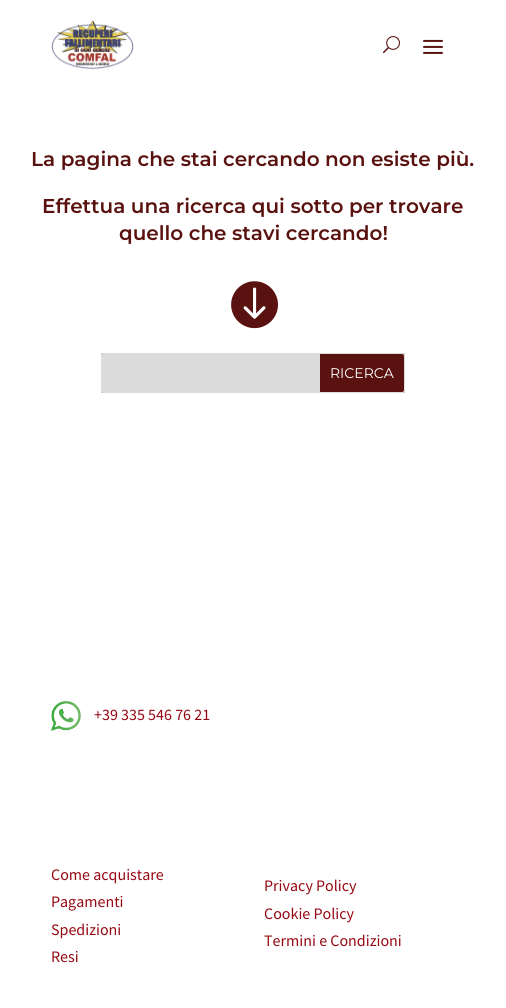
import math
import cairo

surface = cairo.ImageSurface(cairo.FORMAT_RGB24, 506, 1008)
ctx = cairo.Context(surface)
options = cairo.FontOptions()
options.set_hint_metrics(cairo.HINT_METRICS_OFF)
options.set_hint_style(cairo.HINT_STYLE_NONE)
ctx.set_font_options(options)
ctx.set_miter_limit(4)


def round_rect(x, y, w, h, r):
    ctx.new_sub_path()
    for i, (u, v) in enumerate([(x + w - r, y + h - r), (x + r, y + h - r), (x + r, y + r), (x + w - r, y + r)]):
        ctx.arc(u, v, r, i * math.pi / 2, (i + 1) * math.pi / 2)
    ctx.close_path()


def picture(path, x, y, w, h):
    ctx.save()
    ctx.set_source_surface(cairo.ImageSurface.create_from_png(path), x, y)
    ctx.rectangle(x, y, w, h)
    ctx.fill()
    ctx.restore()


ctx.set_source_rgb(1, 1, 1)
ctx.paint()
picture("img1.png", 51, 20, 83, 50)
picture("img2.png", 383, 36, 17, 18)
picture("img3.png", 423, 39, 20, 15)
ctx.select_font_face("Montserrat SemiBold")
ctx.set_font_size(20)
ctx.set_source_rgb(0.349, 0.071, 0.059)
ctx.move_to(31, 166)
ctx.show_text("La pagina che stai cercando non esiste più.")
ctx.move_to(42, 213)
ctx.show_text("Effettua una ricerca qui sotto per trovare")
ctx.move_to(119, 240)
ctx.show_text("quello che stavi cercando!")
picture("img4.png", 231, 281, 47, 48)
ctx.set_source_rgb(0.776, 0.776, 0.776)
ctx.rectangle(101, 353, 304, 40)
ctx.fill()
round_rect(101.5, 353.5, 303, 39, 2.5)
ctx.set_source_rgb(0.867, 0.867, 0.867)
ctx.set_line_width(1)
ctx.stroke()
ctx.set_source_rgb(0.859, 0.859, 0.859)
ctx.new_path()
ctx.move_to(104, 354)
ctx.line_to(320, 354)
ctx.line_to(320, 392)
ctx.line_to(104, 392)
ctx.curve_to(103, 392, 102, 391, 102, 390)
ctx.line_to(102, 356)
ctx.curve_to(102, 355, 103, 354, 104, 354)
ctx.close_path()
ctx.fill()
ctx.set_source_rgb(0.349, 0.071, 0.059)
ctx.new_path()
ctx.move_to(320, 354)
ctx.line_to(402, 354)
ctx.curve_to(403, 354, 404, 355, 404, 356)
ctx.line_to(404, 390)
ctx.curve_to(404, 391, 403, 392, 402, 392)
ctx.line_to(320, 392)
ctx.close_path()
ctx.fill()
ctx.select_font_face("Montserrat")
ctx.set_font_size(14)
ctx.set_source_rgb(1, 1, 1)
ctx.move_to(330, 378)
ctx.show_text("RICERCA")
picture("img5.png", 51, 701, 30, 30)
ctx.select_font_face("Source Sans Pro")
ctx.set_font_size(16)
ctx.set_source_rgb(0.588, 0.039, 0.078)
ctx.move_to(94, 720)
ctx.show_text("+39 335 546 76 21")
ctx.move_to(51, 880)
ctx.show_text("Come acquistare")
ctx.move_to(51, 907)
ctx.show_text("Pagamenti")
ctx.move_to(51, 935)
ctx.show_text("Spedizioni")
ctx.move_to(51, 962)
ctx.show_text("Resi")
ctx.move_to(264, 891)
ctx.show_text("Privacy Policy")
ctx.move_to(264, 919)
ctx.show_text("Cookie Policy")
ctx.move_to(264, 946)
ctx.show_text("Termini e Condizioni")
surface.write_to_png("page.png")
